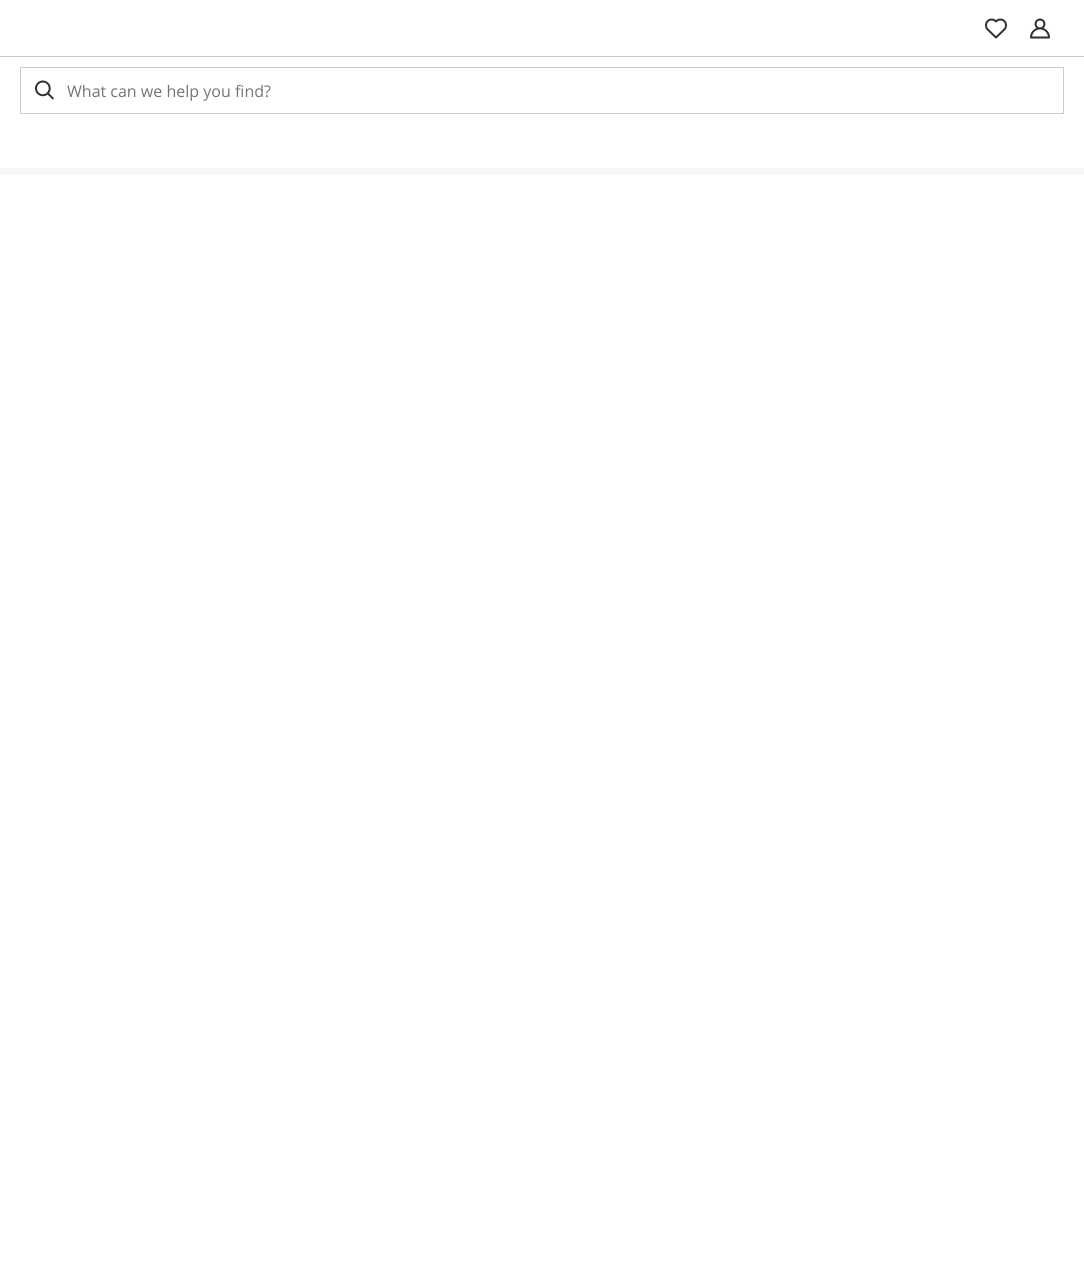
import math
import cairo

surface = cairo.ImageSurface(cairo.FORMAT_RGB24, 1084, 1287)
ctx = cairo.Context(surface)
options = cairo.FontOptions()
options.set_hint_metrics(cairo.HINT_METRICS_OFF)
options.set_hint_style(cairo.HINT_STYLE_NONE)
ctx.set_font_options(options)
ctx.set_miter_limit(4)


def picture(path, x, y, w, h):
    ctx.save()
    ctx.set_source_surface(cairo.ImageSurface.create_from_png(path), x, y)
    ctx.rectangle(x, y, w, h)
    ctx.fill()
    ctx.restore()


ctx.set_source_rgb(1, 1, 1)
ctx.paint()
ctx.set_source_rgb(0.8, 0.8, 0.8)
ctx.rectangle(0, 56, 1084, 1)
ctx.fill()
picture("img1.png", 985, 18, 22, 21)
picture("img2.png", 1030, 18, 20, 21)
ctx.rectangle(20.5, 67.5, 1043, 46)
ctx.set_line_width(1)
ctx.stroke()
picture("img3.png", 35, 80, 19, 20)
ctx.select_font_face("Open Sans")
ctx.set_font_size(16)
ctx.set_source_rgb(0.459, 0.459, 0.459)
ctx.move_to(67, 97)
ctx.show_text("What can we help you find?")
ctx.set_source_rgb(0.969, 0.969, 0.961)
ctx.rectangle(0, 168, 1084, 7)
ctx.fill()
surface.write_to_png("page.png")
